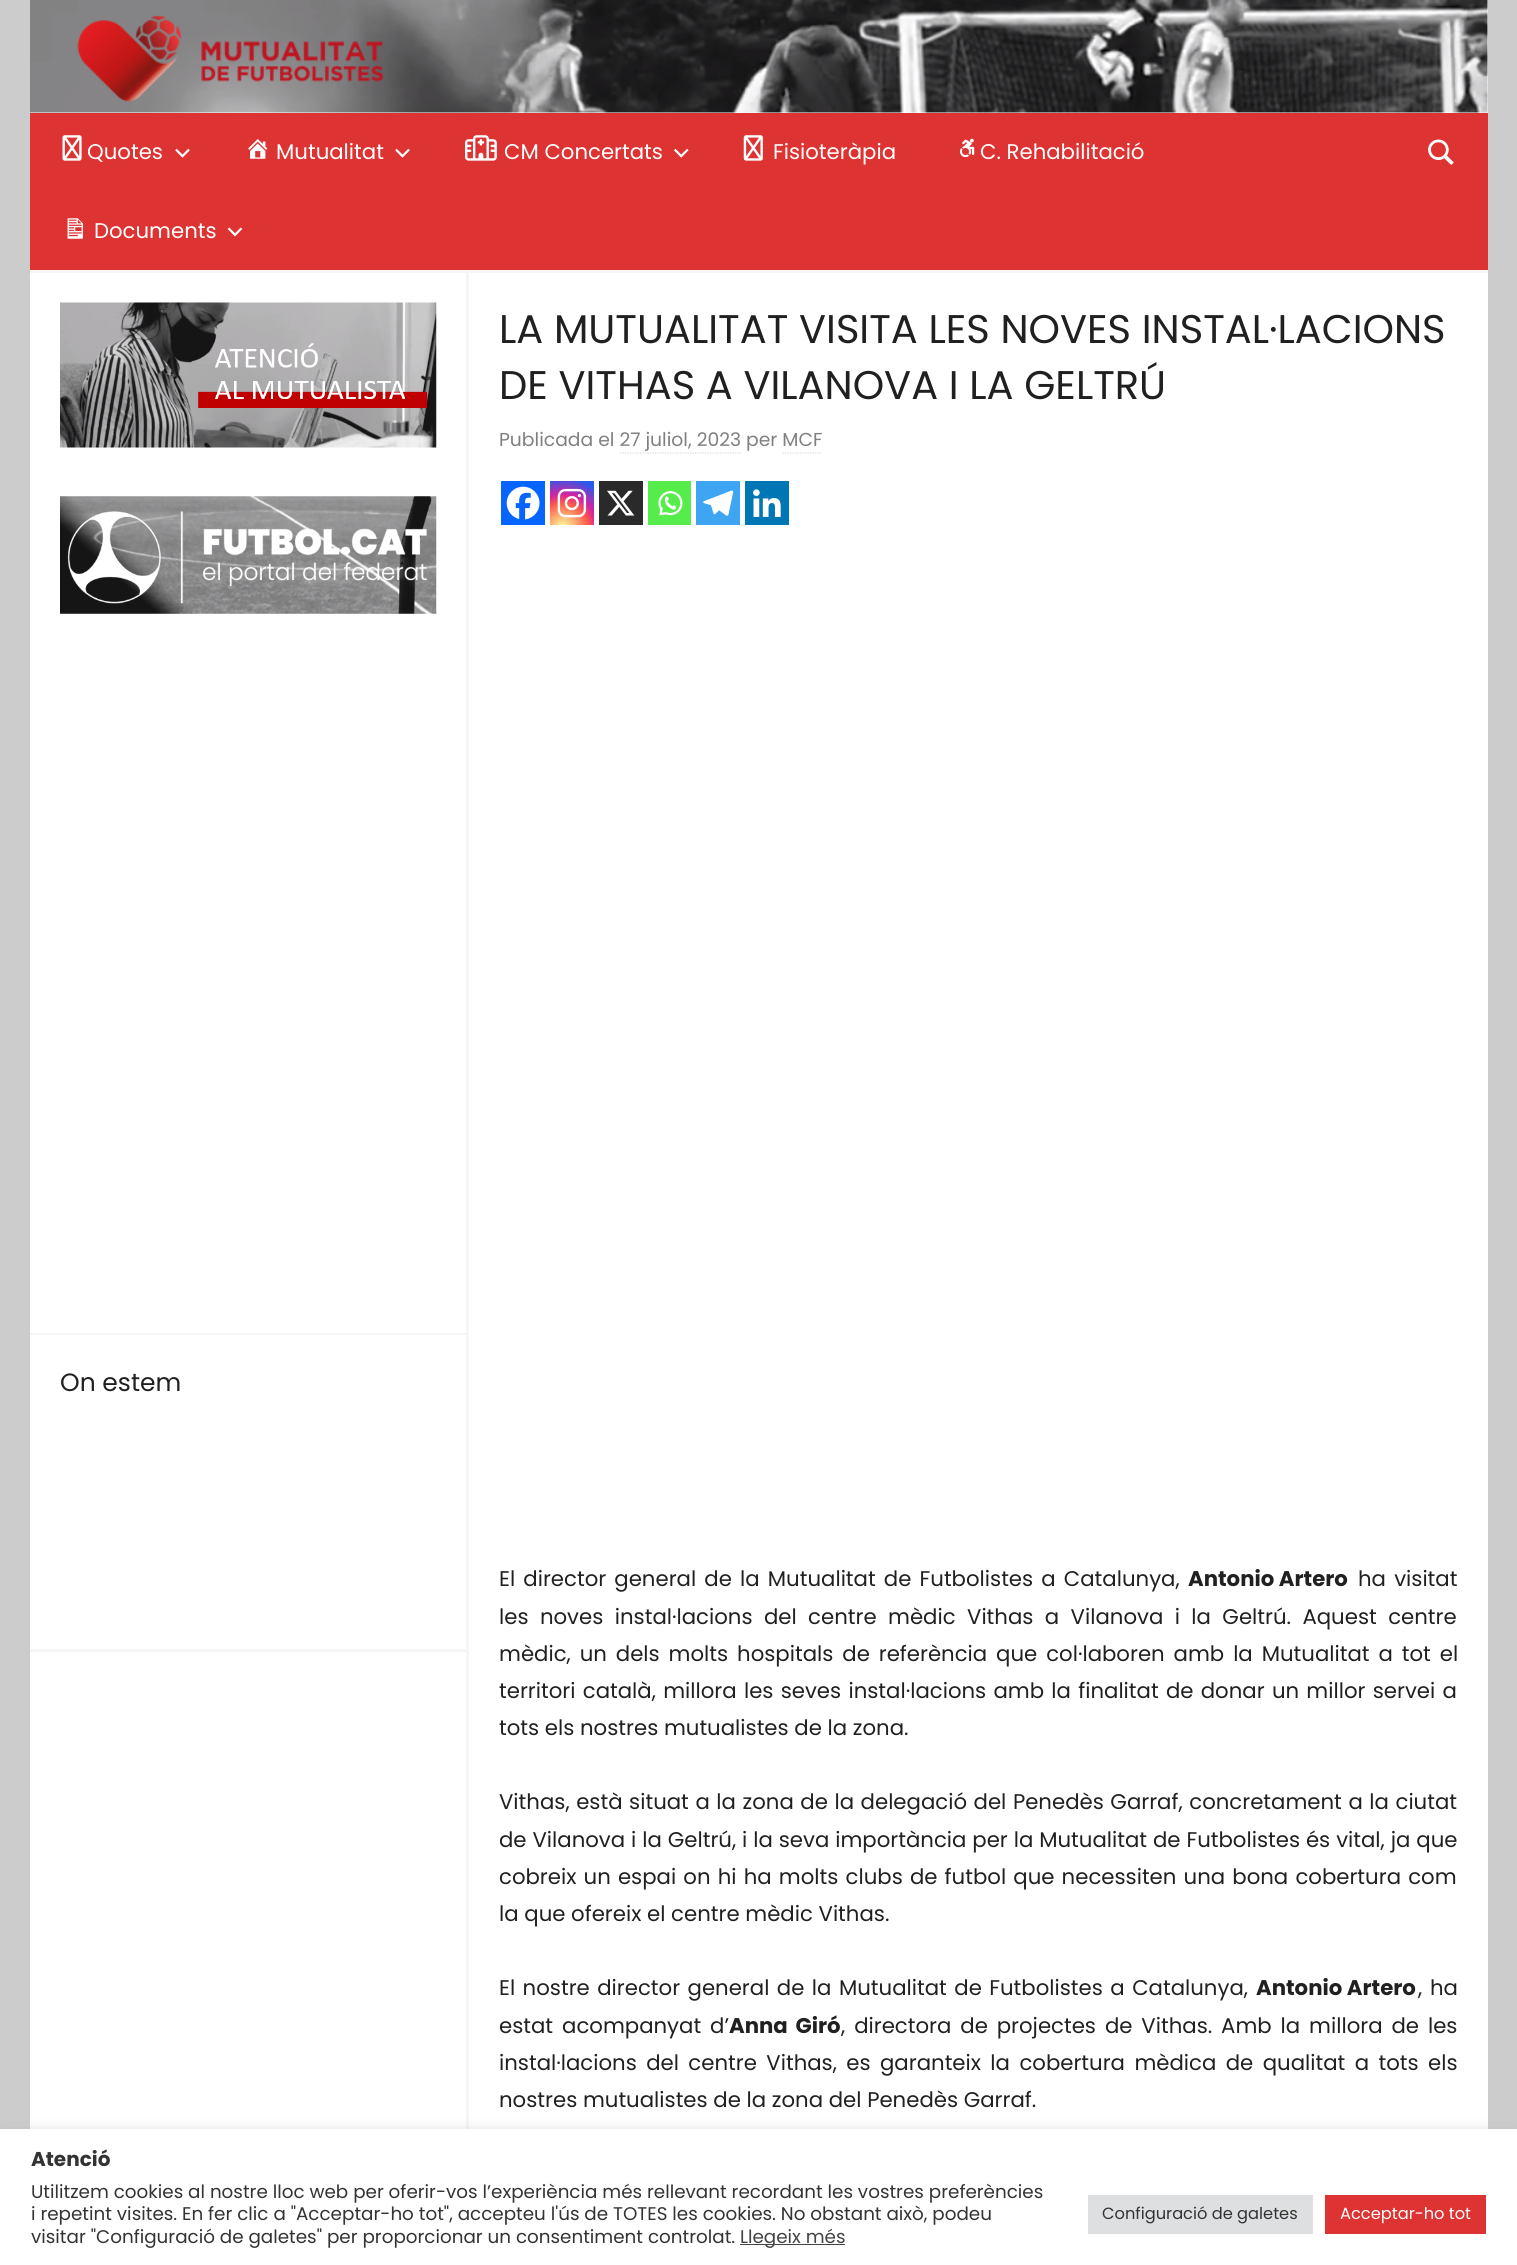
import math
import cairo

surface = cairo.ImageSurface(cairo.FORMAT_RGB24, 1517, 2265)
ctx = cairo.Context(surface)
options = cairo.FontOptions()
options.set_hint_metrics(cairo.HINT_METRICS_OFF)
options.set_hint_style(cairo.HINT_STYLE_NONE)
ctx.set_font_options(options)
ctx.set_miter_limit(4)


def spaced_text(x, y, s, letter, word):
    ctx.move_to(x, y)
    for ch in s:
        ctx.show_text(ch)
        ctx.rel_move_to(letter + word * (ch == ' '), 0)


def round_rect(x, y, w, h, r):
    ctx.new_sub_path()
    for i, (u, v) in enumerate([(x + w - r, y + h - r), (x + r, y + h - r), (x + r, y + r), (x + w - r, y + r)]):
        ctx.arc(u, v, r, i * math.pi / 2, (i + 1) * math.pi / 2)
    ctx.close_path()


def shadow(x, y, w, h, r, blur, alpha):
    ctx.push_group_with_content(cairo.CONTENT_ALPHA)
    ctx.set_operator(cairo.OPERATOR_SOURCE)
    for i in range(15, -16, -2):
        e = blur * i / 6
        if min(w, h) + 2 * e > 0:
            ctx.set_source_rgba(0, 0, 0, alpha * math.erfc((i - 1) / 8.5) / 2)
            round_rect(x - e, y - e, w + 2 * e, h + 2 * e, max(0, min(r + e + blur * .6, min(w, h) / 2 + e)))
            ctx.fill()
    ctx.mask(ctx.pop_group())


def picture(path, x, y, w, h):
    ctx.save()
    ctx.set_source_surface(cairo.ImageSurface.create_from_png(path), x, y)
    ctx.rectangle(x, y, w, h)
    ctx.fill()
    ctx.restore()


ctx.set_source_rgb(0.8, 0.8, 0.8)
ctx.paint()
ctx.set_source_rgb(1, 1, 1)
ctx.rectangle(30, 0, 1458, 113)
ctx.fill()
picture("img1.png", 30, 0, 1458, 113)
picture("img2.png", 77, 15, 307, 87)
ctx.set_source_rgb(0.867, 0.2, 0.2)
ctx.rectangle(30, 113, 1458, 157)
ctx.fill()
picture("img3.png", 62, 135, 20, 26)
ctx.select_font_face("Poppins")
ctx.set_font_size(21.25)
ctx.set_source_rgb(1, 1, 1)
ctx.move_to(87, 159)
ctx.show_text("Quotes")
picture("img4.png", 175, 148, 15, 10)
picture("img5.png", 248, 139, 20, 20)
ctx.move_to(276, 159)
ctx.show_text("Mutualitat")
picture("img4.png", 395, 148, 15, 10)
picture("img6.png", 465, 135, 32, 26)
ctx.move_to(504, 159)
ctx.show_text("CM Concertats")
picture("img7.png", 674, 148, 15, 10)
picture("img8.png", 743, 135, 20, 26)
ctx.move_to(773, 159)
ctx.show_text("Fisioteràpia")
picture("img9.png", 960, 138, 15, 20)
ctx.move_to(980, 159)
ctx.show_text("C. Rehabilitació")
picture("img10.png", 67, 218, 16, 21)
ctx.move_to(94, 238)
ctx.show_text("Documents")
picture("img11.png", 227, 227, 16, 10)
picture("img12.png", 1428, 139, 26, 26)
ctx.set_source_rgb(0.961, 0.961, 0.961)
ctx.rectangle(30, 270, 1458, 1859)
ctx.fill()
ctx.set_source_rgb(1, 1, 1)
ctx.rectangle(30, 273, 436, 1856)
ctx.fill()
ctx.set_source_rgb(0.961, 0.961, 0.961)
ctx.rectangle(30, 1333, 436, 2)
ctx.fill()
picture("img13.png", 60, 302, 377, 146)
picture("img14.png", 60, 496, 377, 118)
ctx.rectangle(30, 1649, 436, 3)
ctx.fill()
ctx.set_font_size(25)
ctx.set_source_rgb(0.125, 0.125, 0.125)
ctx.move_to(60, 1391)
ctx.show_text("On estem")
ctx.set_source_rgb(1, 1, 1)
ctx.rectangle(469, 273, 1019, 1856)
ctx.fill()
ctx.set_font_size(40)
ctx.set_source_rgb(0.125, 0.125, 0.125)
ctx.move_to(499, 343)
ctx.show_text("LA MUTUALITAT VISITA LES NOVES INSTAL·LACIONS")
ctx.move_to(499, 399)
ctx.show_text("DE VITHAS A VILANOVA I LA GELTRÚ")
ctx.set_font_size(18.75)
ctx.set_source_rgb(0.502, 0.502, 0.502)
ctx.move_to(499, 446)
ctx.show_text("Publicada el 27 juliol, 2023 per MCF")
ctx.new_path()
ctx.move_to(620, 453)
ctx.line_to(741, 453)
ctx.set_source_rgb(0.851, 0.851, 0.851)
ctx.set_line_width(1.2)
ctx.set_dash([1.25, 1.25])
ctx.stroke()
ctx.new_path()
ctx.move_to(782.5, 453)
ctx.line_to(822.5, 453)
ctx.stroke()
ctx.set_source_rgb(0.027, 0.396, 0.996)
ctx.rectangle(501, 481, 44, 44)
ctx.fill()
picture("img15.png", 506, 486, 34, 34)
gradient = cairo.RadialGradient(563, 528, 0, 563, 528, 56)
gradient.add_color_stop_rgba(0, 0.992, 0.957, 0.592, 1)
gradient.add_color_stop_rgba(0.05, 0.992, 0.957, 0.592, 1)
gradient.add_color_stop_rgba(0.45, 0.992, 0.349, 0.286, 1)
gradient.add_color_stop_rgba(0.6, 0.839, 0.141, 0.624, 1)
gradient.add_color_stop_rgba(0.9, 0.157, 0.353, 0.922, 1)
ctx.set_source(gradient)
ctx.rectangle(550, 481, 44, 44)
ctx.fill()
picture("img16.png", 557, 488, 30, 30)
ctx.set_source_rgb(0.165, 0.165, 0.165)
ctx.rectangle(599, 481, 44, 44)
ctx.fill()
picture("img17.png", 607, 490, 28, 26)
ctx.set_source_rgb(0.333, 0.922, 0.298)
ctx.rectangle(648, 481, 43, 44)
ctx.fill()
picture("img18.png", 658, 491, 25, 25)
ctx.set_source_rgb(0.239, 0.647, 0.945)
ctx.rectangle(696, 481, 44, 44)
ctx.fill()
picture("img19.png", 703, 490, 31, 26)
ctx.set_source_rgb(0, 0.467, 0.71)
ctx.rectangle(745, 481, 44, 44)
ctx.fill()
picture("img20.png", 753, 489, 28, 28)
ctx.set_font_size(21.25)
ctx.set_source_rgb(0.125, 0.125, 0.125)
spaced_text(499, 1586, "El director general de la Mutualitat de Futbolistes a Catalunya,", 0, 2.5)
ctx.select_font_face("Poppins", cairo.FONT_SLANT_NORMAL, cairo.FONT_WEIGHT_BOLD)
ctx.move_to(1188, 1586)
ctx.show_text("Antonio Artero")
ctx.select_font_face("Poppins")
spaced_text(1358, 1586, "ha visitat", 0, 2.5)
spaced_text(499, 1624, "les noves instal·lacions del centre mèdic Vithas a Vilanova i la Geltrú. Aquest centre", 0, 5.75)
spaced_text(499, 1661, "mèdic, un dels molts hospitals de referència que col·laboren amb la Mutualitat a tot el", 0, 3.25)
spaced_text(499, 1698, "territori català, millora les seves instal·lacions amb la finalitat de donar un millor servei a", 0, 1.6)
ctx.move_to(499, 1735)
ctx.show_text("tots els nostres mutualistes de la zona.")
spaced_text(499, 1809, "Vithas, està situat a la zona de la delegació del Penedès Garraf, concretament a la ciutat", 0, 0.9)
spaced_text(499, 1847, "de Vilanova i la Geltrú, i la seva importància per la Mutualitat de Futbolistes és vital, ja que", 0, 0.25)
spaced_text(499, 1884, "cobreix un espai on hi ha molts clubs de futbol que necessiten una bona cobertura com", 0, 1.5)
ctx.move_to(499, 1921)
ctx.show_text("la que ofereix el centre mèdic Vithas.")
spaced_text(499, 1995, "El nostre director general de la Mutualitat de Futbolistes a Catalunya,", 0, 1.8)
ctx.select_font_face("Poppins", cairo.FONT_SLANT_NORMAL, cairo.FONT_WEIGHT_BOLD)
ctx.move_to(1256, 1995)
ctx.show_text("Antonio Artero")
ctx.select_font_face("Poppins")
spaced_text(1418, 1995, ", ha", 0, 2)
spaced_text(499, 2033, "estat acompanyat d’", 0, 3.25)
ctx.select_font_face("Poppins", cairo.FONT_SLANT_NORMAL, cairo.FONT_WEIGHT_BOLD)
spaced_text(729, 2033, "Anna Giró", 0, 3.25)
ctx.select_font_face("Poppins")
spaced_text(841, 2033, ", directora de projectes de Vithas. Amb la millora de les", 0, 3.25)
spaced_text(499, 2070, "instal·lacions del centre Vithas, es garanteix la cobertura mèdica de qualitat a tots els", 0, 3.75)
ctx.move_to(499, 2107)
ctx.show_text("nostres mutualistes de la zona del Penedès Garraf.")
ctx.set_source_rgb(0.675, 0.671, 0.671)
shadow(0, 2128, 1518, 136, 0, 6, 0.3)
ctx.set_source_rgb(1, 1, 1)
ctx.rectangle(0, 2129, 1517, 136)
ctx.fill()
ctx.select_font_face("Poppins", cairo.FONT_SLANT_NORMAL, cairo.FONT_WEIGHT_BOLD)
ctx.set_font_size(20)
ctx.set_source_rgb(0.2, 0.2, 0.2)
ctx.move_to(31, 2166)
ctx.show_text("Atenció")
ctx.select_font_face("Poppins")
ctx.set_font_size(18.33)
ctx.move_to(31, 2198)
ctx.show_text("Utilitzem cookies al nostre lloc web per oferir-vos l’experiència més rellevant recordant les vostres preferències")
ctx.move_to(31, 2220)
ctx.show_text("i repetint visites. En fer clic a \"Acceptar-ho tot\", accepteu l'ús de TOTES les cookies. No obstant això, podeu")
ctx.move_to(31, 2243)
ctx.show_text("visitar \"Configuració de galetes\" per proporcionar un consentiment controlat.")
ctx.set_source_rgb(0.267, 0.267, 0.267)
ctx.rectangle(740, 2244, 105, 1)
ctx.fill()
ctx.move_to(740, 2243)
ctx.show_text("Llegeix més")
ctx.set_source_rgb(0.871, 0.875, 0.878)
ctx.rectangle(1088, 2195, 225, 39)
ctx.fill()
ctx.set_font_size(16.25)
ctx.set_source_rgb(0.2, 0.2, 0.2)
ctx.move_to(1102, 2219)
ctx.show_text("Configuració de galetes")
ctx.set_source_rgb(0.867, 0.2, 0.2)
ctx.rectangle(1325, 2195, 161, 39)
ctx.fill()
ctx.set_source_rgb(1, 1, 1)
ctx.move_to(1340, 2219)
ctx.show_text("Acceptar-ho tot")
surface.write_to_png("page.png")
